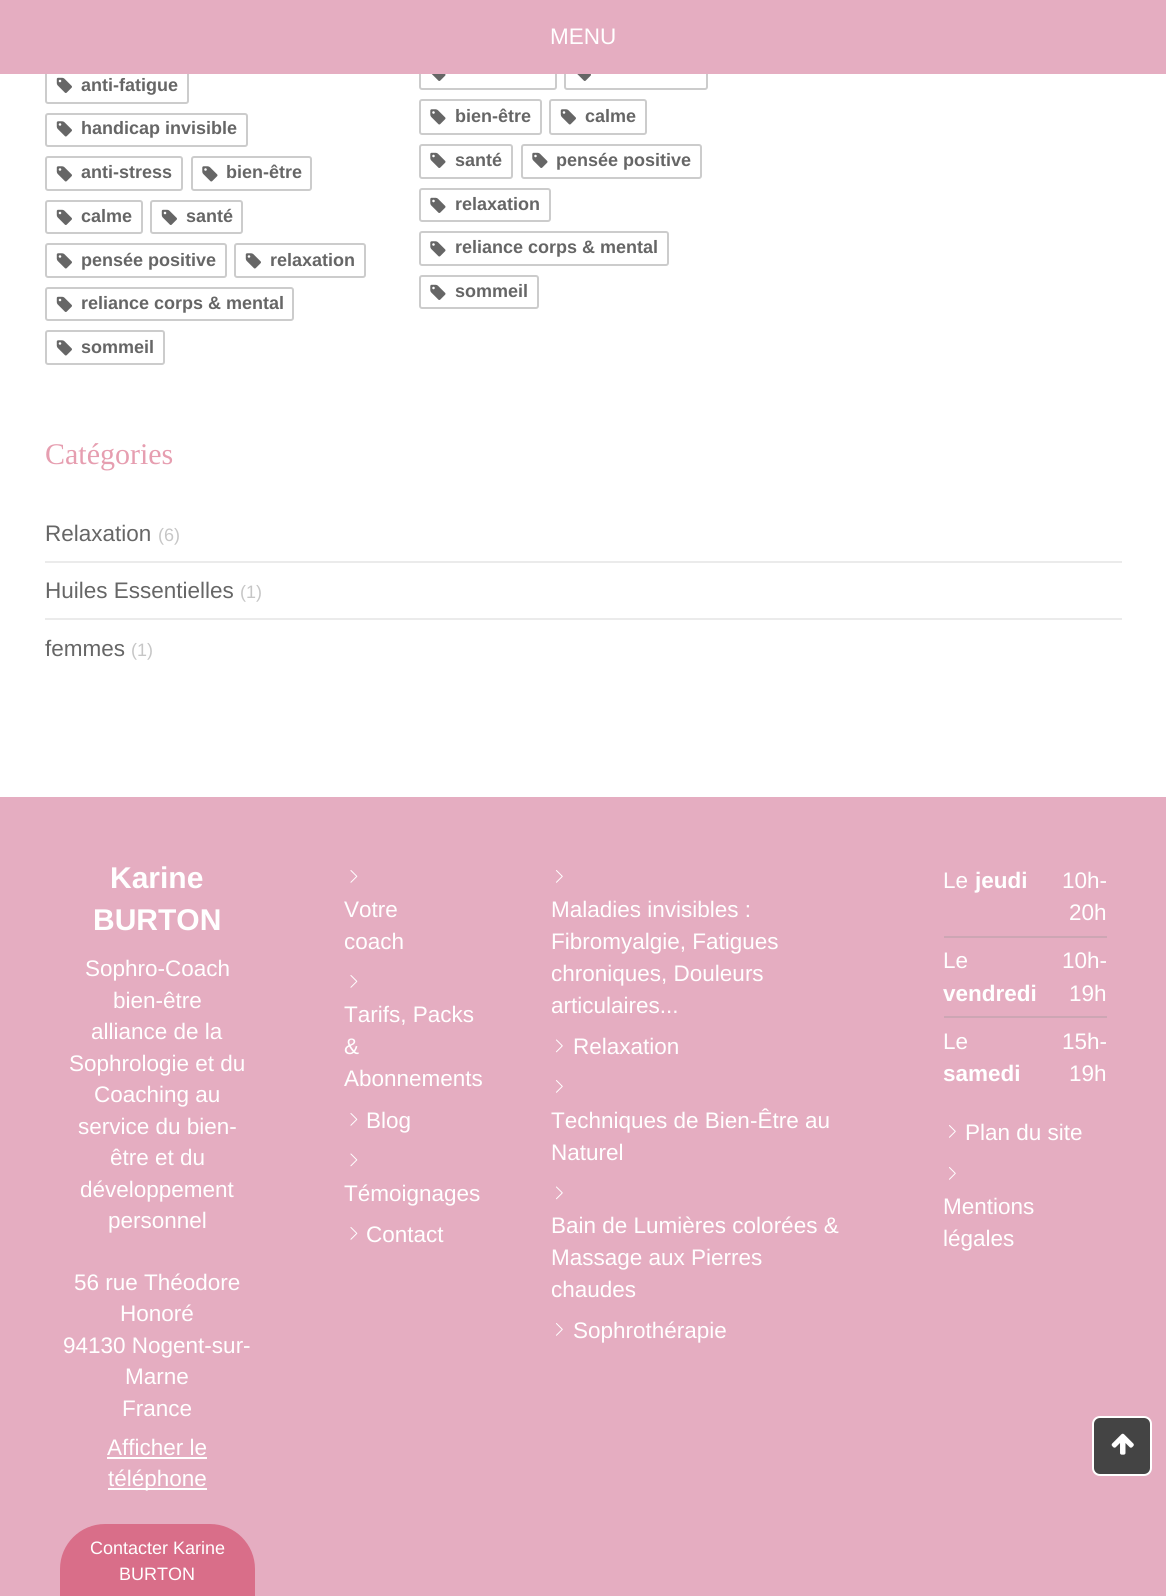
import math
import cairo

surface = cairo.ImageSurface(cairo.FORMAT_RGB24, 1166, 1596)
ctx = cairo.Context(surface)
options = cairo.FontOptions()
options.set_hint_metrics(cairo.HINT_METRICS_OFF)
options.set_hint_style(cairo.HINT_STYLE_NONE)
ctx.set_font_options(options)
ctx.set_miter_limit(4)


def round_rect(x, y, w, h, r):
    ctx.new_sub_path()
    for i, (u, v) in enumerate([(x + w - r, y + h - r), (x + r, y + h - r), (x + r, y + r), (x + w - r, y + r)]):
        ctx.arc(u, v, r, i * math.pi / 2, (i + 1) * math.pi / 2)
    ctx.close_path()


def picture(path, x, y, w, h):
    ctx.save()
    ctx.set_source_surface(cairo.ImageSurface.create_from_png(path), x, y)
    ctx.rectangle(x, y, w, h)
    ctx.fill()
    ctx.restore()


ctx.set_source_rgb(0.898, 0.678, 0.757)
ctx.paint()
ctx.set_source_rgb(1, 1, 1)
ctx.rectangle(0, 74, 1166, 723)
ctx.fill()
round_rect(46, 69, 142, 34, 2)
ctx.set_source_rgb(0.8, 0.8, 0.8)
ctx.stroke()
round_rect(420, 57, 136, 32, 2)
ctx.stroke()
round_rect(565, 57, 142, 32, 2)
ctx.stroke()
ctx.set_source_rgb(0.898, 0.678, 0.757)
ctx.rectangle(45, 56, 663, 18)
ctx.fill()
ctx.select_font_face("Liberation Sans")
ctx.set_font_size(22.5)
ctx.set_source_rgb(1, 1, 1)
ctx.move_to(550, 44)
ctx.show_text("MENU")
picture("img1.png", 56, 77, 16, 16)
ctx.select_font_face("Liberation Sans", cairo.FONT_SLANT_NORMAL, cairo.FONT_WEIGHT_BOLD)
ctx.set_font_size(18)
ctx.set_source_rgb(0.4, 0.4, 0.4)
ctx.move_to(81, 91)
ctx.show_text("anti-fatigue")
round_rect(46, 114, 201, 32, 2)
ctx.set_source_rgb(0.8, 0.8, 0.8)
ctx.stroke()
picture("img2.png", 56, 121, 16, 16)
ctx.set_source_rgb(0.4, 0.4, 0.4)
ctx.move_to(81, 134)
ctx.show_text("handicap invisible")
round_rect(46, 157, 136, 33, 2)
ctx.set_source_rgb(0.8, 0.8, 0.8)
ctx.stroke()
picture("img2.png", 56, 166, 16, 16)
ctx.set_source_rgb(0.4, 0.4, 0.4)
ctx.move_to(81, 178)
ctx.show_text("anti-stress")
round_rect(192, 157, 119, 33, 2)
ctx.set_source_rgb(0.8, 0.8, 0.8)
ctx.stroke()
picture("img3.png", 202, 166, 16, 16)
ctx.set_source_rgb(0.4, 0.4, 0.4)
ctx.move_to(226, 178)
ctx.show_text("bien-être")
round_rect(46, 201, 96, 32, 2)
ctx.set_source_rgb(0.8, 0.8, 0.8)
ctx.stroke()
picture("img1.png", 56, 209, 16, 16)
ctx.set_source_rgb(0.4, 0.4, 0.4)
ctx.move_to(81, 222)
ctx.show_text("calme")
round_rect(151, 201, 91, 32, 2)
ctx.set_source_rgb(0.8, 0.8, 0.8)
ctx.stroke()
picture("img1.png", 161, 209, 16, 16)
ctx.set_source_rgb(0.4, 0.4, 0.4)
ctx.move_to(186, 222)
ctx.show_text("santé")
round_rect(46, 244, 180, 33, 2)
ctx.set_source_rgb(0.8, 0.8, 0.8)
ctx.stroke()
picture("img2.png", 56, 253, 16, 16)
ctx.set_source_rgb(0.4, 0.4, 0.4)
ctx.move_to(81, 266)
ctx.show_text("pensée positive")
round_rect(235, 244, 130, 33, 2)
ctx.set_source_rgb(0.8, 0.8, 0.8)
ctx.stroke()
picture("img2.png", 245, 253, 16, 16)
ctx.set_source_rgb(0.4, 0.4, 0.4)
ctx.move_to(270, 266)
ctx.show_text("relaxation")
round_rect(46, 288, 247, 32, 2)
ctx.set_source_rgb(0.8, 0.8, 0.8)
ctx.stroke()
picture("img1.png", 56, 296, 16, 16)
ctx.set_source_rgb(0.4, 0.4, 0.4)
ctx.move_to(81, 309)
ctx.show_text("reliance corps & mental")
round_rect(46, 331, 118, 33, 2)
ctx.set_source_rgb(0.8, 0.8, 0.8)
ctx.stroke()
picture("img2.png", 56, 340, 16, 16)
ctx.set_source_rgb(0.4, 0.4, 0.4)
ctx.move_to(81, 353)
ctx.show_text("sommeil")
picture("img4.png", 431, 74, 15, 7)
picture("img5.png", 577, 74, 14, 7)
round_rect(420, 100, 121, 34, 2)
ctx.set_source_rgb(0.8, 0.8, 0.8)
ctx.stroke()
picture("img3.png", 430, 109, 16, 16)
ctx.set_source_rgb(0.4, 0.4, 0.4)
ctx.move_to(455, 122)
ctx.show_text("bien-être")
round_rect(550, 100, 96, 34, 2)
ctx.set_source_rgb(0.8, 0.8, 0.8)
ctx.stroke()
picture("img2.png", 560, 109, 16, 16)
ctx.set_source_rgb(0.4, 0.4, 0.4)
ctx.move_to(585, 122)
ctx.show_text("calme")
round_rect(420, 145, 92, 33, 2)
ctx.set_source_rgb(0.8, 0.8, 0.8)
ctx.stroke()
picture("img6.png", 430, 152, 16, 16)
ctx.set_source_rgb(0.4, 0.4, 0.4)
ctx.move_to(455, 166)
ctx.show_text("santé")
round_rect(522, 145, 179, 33, 2)
ctx.set_source_rgb(0.8, 0.8, 0.8)
ctx.stroke()
picture("img6.png", 532, 152, 16, 16)
ctx.set_source_rgb(0.4, 0.4, 0.4)
ctx.move_to(556, 166)
ctx.show_text("pensée positive")
round_rect(420, 189, 130, 32, 2)
ctx.set_source_rgb(0.8, 0.8, 0.8)
ctx.stroke()
picture("img6.png", 430, 197, 16, 16)
ctx.set_source_rgb(0.4, 0.4, 0.4)
ctx.move_to(455, 210)
ctx.show_text("relaxation")
round_rect(420, 232, 248, 33, 2)
ctx.set_source_rgb(0.8, 0.8, 0.8)
ctx.stroke()
picture("img3.png", 430, 241, 16, 16)
ctx.set_source_rgb(0.4, 0.4, 0.4)
ctx.move_to(455, 253)
ctx.show_text("reliance corps & mental")
round_rect(420, 276, 118, 32, 2)
ctx.set_source_rgb(0.8, 0.8, 0.8)
ctx.stroke()
picture("img6.png", 430, 284, 16, 16)
ctx.set_source_rgb(0.4, 0.4, 0.4)
ctx.move_to(455, 297)
ctx.show_text("sommeil")
ctx.select_font_face("Liberation Serif")
ctx.set_font_size(30)
ctx.set_source_rgb(0.902, 0.62, 0.69)
ctx.move_to(45, 464)
ctx.show_text("Catégories")
ctx.select_font_face("Liberation Sans")
ctx.set_font_size(22.5)
ctx.set_source_rgb(0.4, 0.4, 0.4)
ctx.move_to(45, 541)
ctx.show_text("Relaxation")
ctx.set_font_size(18)
ctx.set_source_rgb(0.776, 0.776, 0.776)
ctx.move_to(158, 541)
ctx.show_text("(6)")
ctx.set_source_rgb(0.918, 0.918, 0.918)
ctx.rectangle(45, 561, 1077, 2)
ctx.fill()
ctx.set_font_size(22.5)
ctx.set_source_rgb(0.4, 0.4, 0.4)
ctx.move_to(45, 598)
ctx.show_text("Huiles Essentielles")
ctx.set_font_size(18)
ctx.set_source_rgb(0.776, 0.776, 0.776)
ctx.move_to(240, 598)
ctx.show_text("(1)")
ctx.set_source_rgb(0.918, 0.918, 0.918)
ctx.rectangle(45, 618, 1077, 2)
ctx.fill()
ctx.set_font_size(22.5)
ctx.set_source_rgb(0.4, 0.4, 0.4)
ctx.move_to(45, 656)
ctx.show_text("femmes")
ctx.set_font_size(18)
ctx.set_source_rgb(0.776, 0.776, 0.776)
ctx.move_to(131, 656)
ctx.show_text("(1)")
ctx.select_font_face("Liberation Sans", cairo.FONT_SLANT_NORMAL, cairo.FONT_WEIGHT_BOLD)
ctx.set_font_size(30)
ctx.set_source_rgb(1, 1, 1)
ctx.move_to(110, 888)
ctx.show_text("Karine")
ctx.move_to(93, 930)
ctx.show_text("BURTON")
ctx.select_font_face("Liberation Sans")
ctx.set_font_size(22.5)
ctx.move_to(85, 976)
ctx.show_text("Sophro-Coach")
ctx.move_to(113, 1008)
ctx.show_text("bien-être")
ctx.move_to(91, 1039)
ctx.show_text("alliance de la")
ctx.move_to(69, 1071)
ctx.show_text("Sophrologie et du")
ctx.move_to(94, 1102)
ctx.show_text("Coaching au")
ctx.move_to(78, 1134)
ctx.show_text("service du bien-")
ctx.move_to(110, 1165)
ctx.show_text("être et du")
ctx.move_to(80, 1197)
ctx.show_text("développement")
ctx.move_to(108, 1228)
ctx.show_text("personnel")
ctx.move_to(74, 1290)
ctx.show_text("56 rue Théodore")
ctx.move_to(120, 1321)
ctx.show_text("Honoré")
ctx.move_to(63, 1353)
ctx.show_text("94130 Nogent-sur-")
ctx.move_to(125, 1384)
ctx.show_text("Marne")
ctx.move_to(122, 1416)
ctx.show_text("France")
ctx.move_to(107, 1455)
ctx.show_text("Afficher le")
ctx.rectangle(107, 1457, 100, 2)
ctx.fill()
ctx.rectangle(108, 1488, 99, 2)
ctx.fill()
ctx.move_to(108, 1486)
ctx.show_text("téléphone")
ctx.set_source_rgb(0.851, 0.431, 0.537)
round_rect(61.5, 1525.5, 192, 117, 43.5)
ctx.fill_preserve()
ctx.set_line_width(3)
ctx.stroke()
ctx.set_font_size(18)
ctx.set_source_rgb(1, 1, 1)
ctx.move_to(90, 1554)
ctx.show_text("Contacter Karine")
ctx.move_to(119, 1580)
ctx.show_text("BURTON")
picture("img7.png", 350, 870, 8, 13)
ctx.set_font_size(22.5)
ctx.move_to(344, 917)
ctx.show_text("Votre")
ctx.move_to(344, 949)
ctx.show_text("coach")
picture("img7.png", 350, 975, 8, 13)
ctx.move_to(344, 1022)
ctx.show_text("Tarifs, Packs")
ctx.move_to(344, 1054)
ctx.show_text("&")
ctx.move_to(344, 1086)
ctx.show_text("Abonnements")
picture("img7.png", 350, 1113, 8, 13)
ctx.move_to(366, 1128)
ctx.show_text("Blog")
picture("img8.png", 350, 1153, 8, 14)
ctx.move_to(344, 1201)
ctx.show_text("Témoignages")
picture("img7.png", 350, 1227, 8, 13)
ctx.move_to(366, 1242)
ctx.show_text("Contact")
picture("img9.png", 556, 870, 7, 13)
ctx.move_to(551, 917)
ctx.show_text("Maladies invisibles :")
ctx.move_to(551, 949)
ctx.show_text("Fibromyalgie, Fatigues")
ctx.move_to(551, 981)
ctx.show_text("chroniques, Douleurs")
ctx.move_to(551, 1013)
ctx.show_text("articulaires...")
picture("img10.png", 556, 1039, 7, 14)
ctx.move_to(573, 1054)
ctx.show_text("Relaxation")
picture("img9.png", 556, 1080, 7, 13)
ctx.move_to(551, 1128)
ctx.show_text("Techniques de Bien-Être au")
ctx.move_to(551, 1160)
ctx.show_text("Naturel")
picture("img10.png", 556, 1186, 7, 14)
ctx.move_to(551, 1233)
ctx.show_text("Bain de Lumières colorées &")
ctx.move_to(551, 1265)
ctx.show_text("Massage aux Pierres")
ctx.move_to(551, 1297)
ctx.show_text("chaudes")
picture("img9.png", 556, 1323, 7, 13)
ctx.move_to(573, 1338)
ctx.show_text("Sophrothérapie")
ctx.set_source_rgb(0.804, 0.651, 0.706)
ctx.rectangle(944, 936, 163, 2)
ctx.fill()
ctx.set_source_rgb(1, 1, 1)
ctx.move_to(943, 888)
ctx.show_text("Le")
ctx.select_font_face("Liberation Sans", cairo.FONT_SLANT_NORMAL, cairo.FONT_WEIGHT_BOLD)
ctx.move_to(975, 888)
ctx.show_text("jeudi")
ctx.select_font_face("Liberation Sans")
ctx.move_to(1062, 888)
ctx.show_text("10h-")
ctx.move_to(1069, 920)
ctx.show_text("20h")
ctx.set_source_rgb(0.804, 0.651, 0.706)
ctx.rectangle(944, 1016, 163, 2)
ctx.fill()
ctx.set_source_rgb(1, 1, 1)
ctx.move_to(943, 968)
ctx.show_text("Le")
ctx.select_font_face("Liberation Sans", cairo.FONT_SLANT_NORMAL, cairo.FONT_WEIGHT_BOLD)
ctx.move_to(943, 1001)
ctx.show_text("vendredi")
ctx.select_font_face("Liberation Sans")
ctx.move_to(1062, 968)
ctx.show_text("10h-")
ctx.move_to(1069, 1001)
ctx.show_text("19h")
ctx.move_to(943, 1049)
ctx.show_text("Le")
ctx.select_font_face("Liberation Sans", cairo.FONT_SLANT_NORMAL, cairo.FONT_WEIGHT_BOLD)
ctx.move_to(943, 1081)
ctx.show_text("samedi")
ctx.select_font_face("Liberation Sans")
ctx.move_to(1062, 1049)
ctx.show_text("15h-")
ctx.move_to(1069, 1081)
ctx.show_text("19h")
picture("img9.png", 949, 1125, 7, 13)
ctx.move_to(965, 1140)
ctx.show_text("Plan du site")
picture("img9.png", 949, 1167, 7, 13)
ctx.move_to(943, 1214)
ctx.show_text("Mentions")
ctx.move_to(943, 1246)
ctx.show_text("légales")
ctx.set_source_rgb(0.267, 0.267, 0.267)
round_rect(1093, 1417, 58, 58, 7)
ctx.fill_preserve()
ctx.set_source_rgb(1, 1, 1)
ctx.set_line_width(2)
ctx.stroke()
picture("img11.png", 1111, 1433, 23, 22)
surface.write_to_png("page.png")
